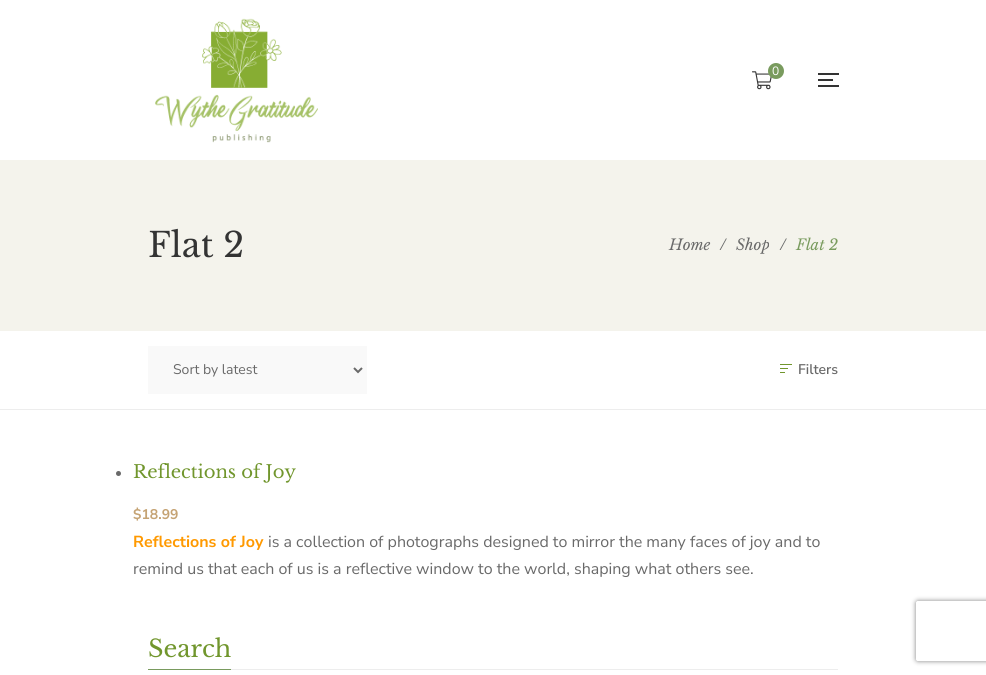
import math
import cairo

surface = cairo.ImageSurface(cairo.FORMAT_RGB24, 986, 675)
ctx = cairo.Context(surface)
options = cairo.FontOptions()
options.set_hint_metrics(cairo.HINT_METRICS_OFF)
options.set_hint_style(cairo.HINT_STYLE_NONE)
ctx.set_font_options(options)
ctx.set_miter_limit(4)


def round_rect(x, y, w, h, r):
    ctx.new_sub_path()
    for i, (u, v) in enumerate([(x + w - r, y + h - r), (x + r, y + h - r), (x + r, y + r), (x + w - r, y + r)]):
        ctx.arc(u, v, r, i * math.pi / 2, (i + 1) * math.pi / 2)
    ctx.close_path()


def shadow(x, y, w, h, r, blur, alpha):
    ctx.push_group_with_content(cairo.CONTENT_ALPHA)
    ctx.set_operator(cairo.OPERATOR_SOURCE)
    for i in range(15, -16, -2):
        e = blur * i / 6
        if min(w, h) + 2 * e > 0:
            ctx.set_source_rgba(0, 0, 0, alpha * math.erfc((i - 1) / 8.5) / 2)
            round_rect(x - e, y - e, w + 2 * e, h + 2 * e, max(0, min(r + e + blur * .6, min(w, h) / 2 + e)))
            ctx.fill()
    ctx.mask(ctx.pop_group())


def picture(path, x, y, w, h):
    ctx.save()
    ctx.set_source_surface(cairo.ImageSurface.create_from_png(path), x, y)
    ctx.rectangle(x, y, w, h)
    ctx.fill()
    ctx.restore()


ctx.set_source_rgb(1, 1, 1)
ctx.paint()
picture("img1.png", 155, 18, 163, 125)
picture("img2.png", 752, 71, 20, 19)
ctx.set_source_rgb(0.475, 0.608, 0.369)
ctx.arc(776, 71, 8, 0, 2 * math.pi)
ctx.fill()
ctx.select_font_face("Nunito Sans")
ctx.set_font_size(12)
ctx.set_source_rgb(1, 1, 1)
ctx.move_to(772, 75)
ctx.show_text("0")
ctx.set_source_rgb(0.2, 0.2, 0.2)
ctx.rectangle(818, 79, 15, 2)
ctx.fill()
ctx.rectangle(818, 73, 21, 2)
ctx.fill()
ctx.rectangle(818, 85, 21, 2)
ctx.fill()
ctx.set_source_rgb(0.957, 0.953, 0.925)
ctx.rectangle(0, 160, 986, 171)
ctx.fill()
ctx.select_font_face("Libre Baskerville")
ctx.set_font_size(34)
ctx.set_source_rgb(0.2, 0.2, 0.2)
ctx.move_to(148, 257)
ctx.show_text("Flat 2")
ctx.select_font_face("Libre Baskerville", cairo.FONT_SLANT_ITALIC)
ctx.set_font_size(15)
ctx.set_source_rgb(0.412, 0.412, 0.412)
ctx.move_to(669, 250)
ctx.show_text("Home")
ctx.move_to(720, 250)
ctx.show_text("/")
ctx.move_to(736, 250)
ctx.show_text("Shop")
ctx.move_to(780, 250)
ctx.show_text("/")
ctx.set_source_rgb(0.475, 0.608, 0.369)
ctx.move_to(796, 250)
ctx.show_text("Flat 2")
ctx.set_source_rgb(0.929, 0.929, 0.929)
ctx.rectangle(0, 409, 986, 1)
ctx.fill()
ctx.set_source_rgb(0.973, 0.973, 0.973)
ctx.rectangle(148, 346, 219, 48)
ctx.fill()
ctx.new_path()
ctx.move_to(354, 368)
ctx.line_to(358, 372)
ctx.line_to(362, 368)
ctx.set_source_rgb(0.412, 0.412, 0.412)
ctx.stroke()
ctx.select_font_face("Nunito Sans")
ctx.set_font_size(14)
ctx.move_to(173, 374)
ctx.show_text("Sort by latest")
ctx.set_source_rgb(0.443, 0.588, 0.176)
ctx.rectangle(780, 368, 8, 1)
ctx.fill()
ctx.rectangle(780, 364, 12, 1)
ctx.fill()
ctx.rectangle(780, 372, 5, 1)
ctx.fill()
ctx.select_font_face("Nunito Sans SemiBold")
ctx.set_source_rgb(0.412, 0.412, 0.412)
ctx.move_to(798, 374)
ctx.show_text("Filters")
ctx.new_path()
ctx.arc(118.5, 473.5, 2.5, 0, 2 * math.pi)
ctx.fill()
ctx.select_font_face("Libre Baskerville")
ctx.set_font_size(18)
ctx.set_source_rgb(0.443, 0.588, 0.176)
ctx.move_to(133, 478)
ctx.show_text("Reflections of Joy")
ctx.select_font_face("Nunito Sans", cairo.FONT_SLANT_NORMAL, cairo.FONT_WEIGHT_BOLD)
ctx.set_font_size(14)
ctx.set_source_rgb(0.773, 0.639, 0.455)
ctx.move_to(133, 519)
ctx.show_text("$18.99")
ctx.set_font_size(16)
ctx.set_source_rgb(1, 0.6, 0)
ctx.move_to(133, 547)
ctx.show_text("Reflections of Joy")
ctx.select_font_face("Nunito Sans")
ctx.set_source_rgb(0.412, 0.412, 0.412)
ctx.move_to(268, 547)
ctx.show_text("is a collection of photographs designed to mirror the many faces of joy and to")
ctx.move_to(133, 574)
ctx.show_text("remind us that each of us is a reflective window to the world, shaping what others see.")
ctx.set_source_rgb(0.929, 0.929, 0.929)
ctx.rectangle(231, 669, 607, 1)
ctx.fill()
ctx.select_font_face("Libre Baskerville")
ctx.set_font_size(24)
ctx.set_source_rgb(0.443, 0.588, 0.176)
ctx.move_to(148, 657)
ctx.show_text("Search")
ctx.set_source_rgb(0.475, 0.608, 0.369)
ctx.rectangle(148, 669, 83, 1)
ctx.fill()
ctx.save()
ctx.set_fill_rule(cairo.FILL_RULE_EVEN_ODD)
ctx.new_path()
ctx.move_to(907, 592)
ctx.line_to(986, 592)
ctx.line_to(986, 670)
ctx.line_to(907, 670)
ctx.close_path()
ctx.move_to(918, 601)
ctx.line_to(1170, 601)
ctx.curve_to(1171, 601, 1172, 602, 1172, 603)
ctx.line_to(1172, 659)
ctx.curve_to(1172, 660, 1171, 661, 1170, 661)
ctx.line_to(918, 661)
ctx.curve_to(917, 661, 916, 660, 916, 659)
ctx.line_to(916, 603)
ctx.curve_to(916, 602, 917, 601, 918, 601)
ctx.close_path()
ctx.clip()
ctx.set_source_rgb(0.502, 0.502, 0.502)
shadow(916, 601, 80, 60, 2, 2.5, 1)
ctx.restore()
surface.write_to_png("page.png")
